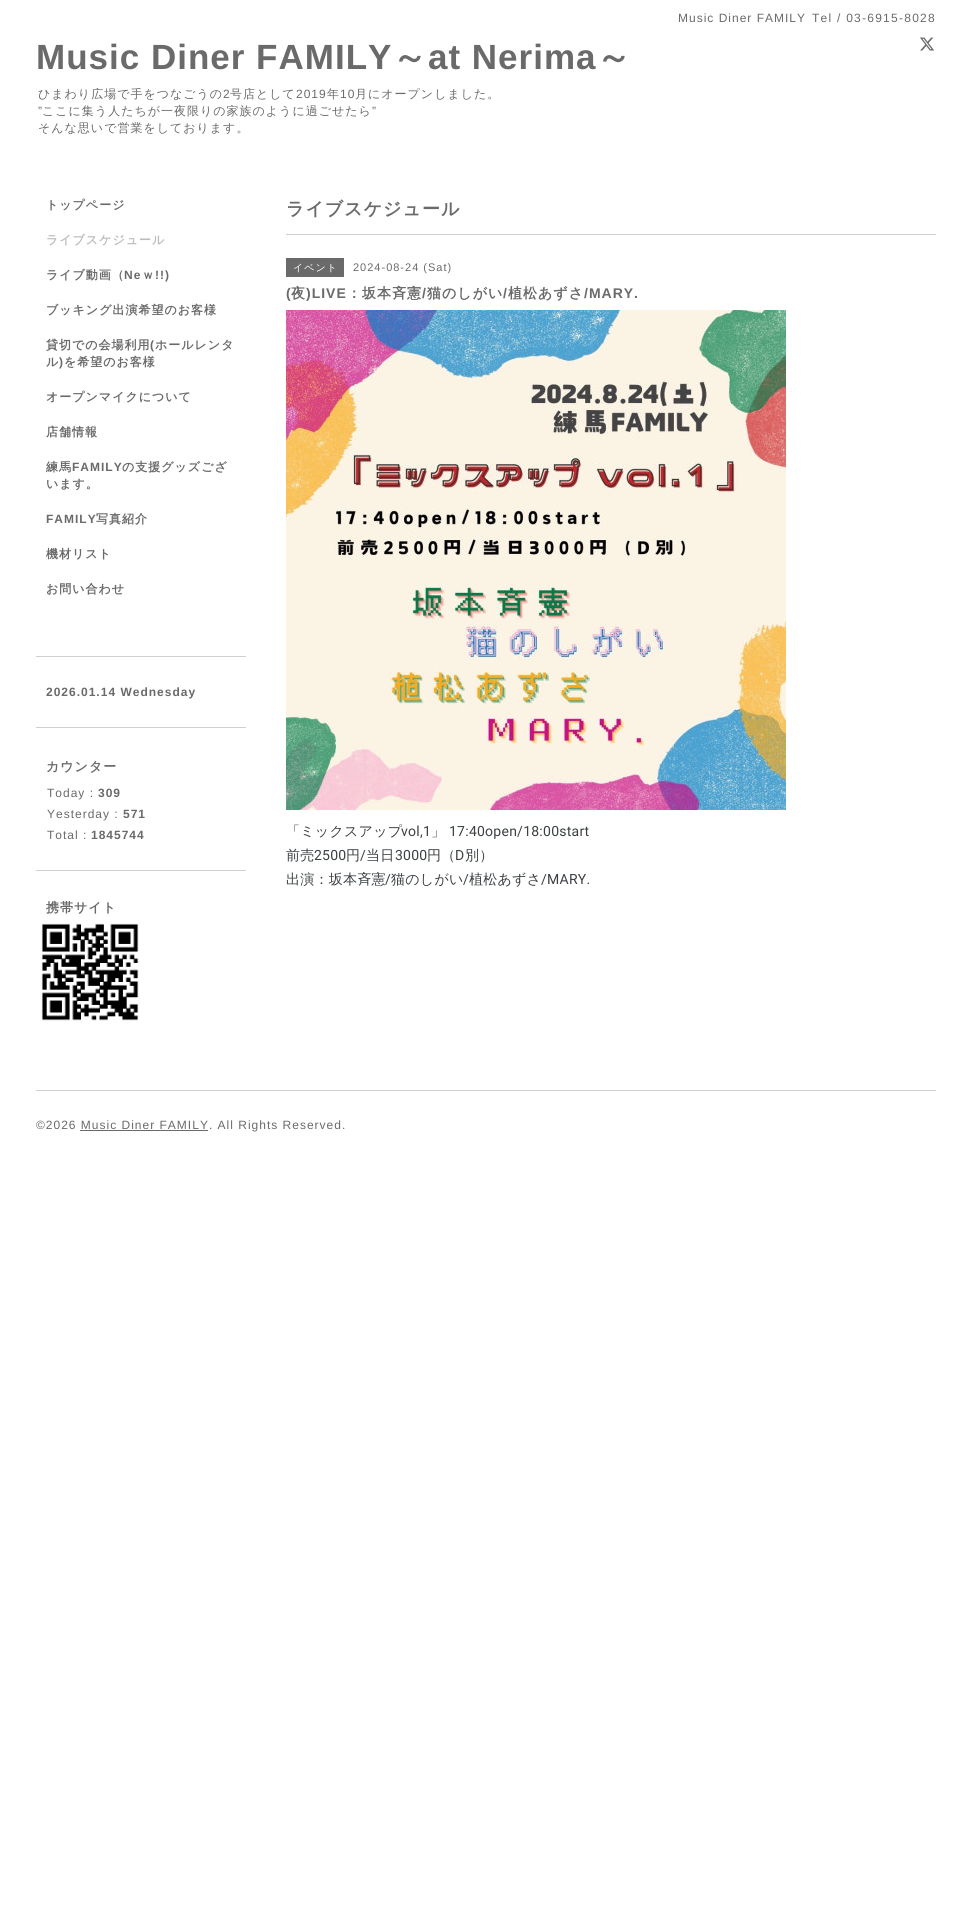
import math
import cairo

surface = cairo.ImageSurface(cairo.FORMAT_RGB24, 971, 1916)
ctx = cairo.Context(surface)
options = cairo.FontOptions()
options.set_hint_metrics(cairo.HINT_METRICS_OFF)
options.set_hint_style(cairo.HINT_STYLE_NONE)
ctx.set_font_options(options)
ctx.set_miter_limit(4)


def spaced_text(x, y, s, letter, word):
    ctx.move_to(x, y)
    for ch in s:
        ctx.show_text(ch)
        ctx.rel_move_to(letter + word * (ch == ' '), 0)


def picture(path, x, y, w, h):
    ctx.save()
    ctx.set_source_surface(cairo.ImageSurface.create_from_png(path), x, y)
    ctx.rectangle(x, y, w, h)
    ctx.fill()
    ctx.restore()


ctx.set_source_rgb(1, 1, 1)
ctx.paint()
ctx.select_font_face("Liberation Sans")
ctx.set_font_size(12)
ctx.set_source_rgb(0.416, 0.416, 0.416)
spaced_text(678, 22, "Music Diner FAMILY", 1, 0)
spaced_text(812, 22, "Tel / 03-6915-8028", 1.25, 0)
picture("img1.png", 920, 37, 15, 14)
ctx.select_font_face("Liberation Sans", cairo.FONT_SLANT_NORMAL, cairo.FONT_WEIGHT_BOLD)
ctx.set_font_size(35)
spaced_text(36, 69, "Music Diner FAMILY", 1, 0)
ctx.select_font_face("WenQuanYi Zen Hei", cairo.FONT_SLANT_NORMAL, cairo.FONT_WEIGHT_BOLD)
spaced_text(392, 69, "～", 1, 0)
ctx.select_font_face("Liberation Sans", cairo.FONT_SLANT_NORMAL, cairo.FONT_WEIGHT_BOLD)
spaced_text(428, 69, "at Nerima", 1, 0)
ctx.select_font_face("WenQuanYi Zen Hei", cairo.FONT_SLANT_NORMAL, cairo.FONT_WEIGHT_BOLD)
spaced_text(596, 69, "～", 1, 0)
ctx.select_font_face("WenQuanYi Zen Hei Medium")
ctx.set_font_size(12)
spaced_text(38, 98, "ひまわり広場で手をつなごうの", 1, 0)
ctx.select_font_face("Liberation Sans")
spaced_text(223, 98, "2", 1, 0)
ctx.select_font_face("WenQuanYi Zen Hei Medium")
spaced_text(230, 98, "号店として", 1, 0)
ctx.select_font_face("Liberation Sans")
spaced_text(296, 98, "2019", 1, 0)
ctx.select_font_face("WenQuanYi Zen Hei Medium")
spaced_text(327, 98, "年", 1, 0)
ctx.select_font_face("Liberation Sans")
spaced_text(340, 98, "10", 1, 0)
ctx.select_font_face("WenQuanYi Zen Hei Medium")
spaced_text(355, 98, "月にオープンしました。", 1, 0)
ctx.select_font_face("Liberation Sans")
spaced_text(38, 115, "”", 1, 0)
ctx.select_font_face("WenQuanYi Zen Hei Medium")
spaced_text(42, 115, "ここに集う人たちが一夜限りの家族のように過ごせたら", 1, 0)
ctx.select_font_face("Liberation Sans")
spaced_text(372, 115, "”", 1, 0)
ctx.select_font_face("WenQuanYi Zen Hei Medium")
spaced_text(38, 132, "そんな思いで営業をしております。", 1, 0)
ctx.select_font_face("WenQuanYi Zen Hei", cairo.FONT_SLANT_NORMAL, cairo.FONT_WEIGHT_BOLD)
spaced_text(46, 209, "トップページ", 1, 0)
ctx.set_source_rgb(0.737, 0.737, 0.737)
spaced_text(46, 244, "ライブスケジュール", 1, 0)
ctx.set_source_rgb(0.416, 0.416, 0.416)
spaced_text(46, 279, "ライブ動画（", 1, 0)
ctx.select_font_face("Liberation Sans", cairo.FONT_SLANT_NORMAL, cairo.FONT_WEIGHT_BOLD)
spaced_text(124, 279, "Ne", 1, 0)
ctx.select_font_face("WenQuanYi Zen Hei", cairo.FONT_SLANT_NORMAL, cairo.FONT_WEIGHT_BOLD)
spaced_text(142, 279, "ｗ", 1, 0)
ctx.select_font_face("Liberation Sans", cairo.FONT_SLANT_NORMAL, cairo.FONT_WEIGHT_BOLD)
spaced_text(155, 279, "!!)", 1, 0)
ctx.select_font_face("WenQuanYi Zen Hei", cairo.FONT_SLANT_NORMAL, cairo.FONT_WEIGHT_BOLD)
spaced_text(46, 314, "ブッキング出演希望のお客様", 1, 0)
spaced_text(46, 349, "貸切での会場利用", 1, 0)
ctx.select_font_face("Liberation Sans", cairo.FONT_SLANT_NORMAL, cairo.FONT_WEIGHT_BOLD)
spaced_text(150, 349, "(", 1, 0)
ctx.select_font_face("WenQuanYi Zen Hei", cairo.FONT_SLANT_NORMAL, cairo.FONT_WEIGHT_BOLD)
spaced_text(155, 349, "ホールレンタ", 1, 0)
spaced_text(46, 366, "ル", 1, 0)
ctx.select_font_face("Liberation Sans", cairo.FONT_SLANT_NORMAL, cairo.FONT_WEIGHT_BOLD)
spaced_text(59, 366, ")", 1, 0)
ctx.select_font_face("WenQuanYi Zen Hei", cairo.FONT_SLANT_NORMAL, cairo.FONT_WEIGHT_BOLD)
spaced_text(64, 366, "を希望のお客様", 1, 0)
spaced_text(46, 401, "オープンマイクについて", 1, 0)
spaced_text(46, 436, "店舗情報", 1, 0)
spaced_text(46, 471, "練馬", 1, 0)
ctx.select_font_face("Liberation Sans", cairo.FONT_SLANT_NORMAL, cairo.FONT_WEIGHT_BOLD)
spaced_text(72, 471, "FAMILY", 1, 0)
ctx.select_font_face("WenQuanYi Zen Hei", cairo.FONT_SLANT_NORMAL, cairo.FONT_WEIGHT_BOLD)
spaced_text(122, 471, "の支援グッズござ", 1, 0)
spaced_text(46, 488, "います。", 1, 0)
ctx.select_font_face("Liberation Sans", cairo.FONT_SLANT_NORMAL, cairo.FONT_WEIGHT_BOLD)
spaced_text(46, 523, "FAMILY", 1, 0)
ctx.select_font_face("WenQuanYi Zen Hei", cairo.FONT_SLANT_NORMAL, cairo.FONT_WEIGHT_BOLD)
spaced_text(96, 523, "写真紹介", 1, 0)
spaced_text(46, 558, "機材リスト", 1, 0)
spaced_text(46, 593, "お問い合わせ", 1, 0)
ctx.set_font_size(18)
spaced_text(286, 215, "ライブスケジュール", 1, 0)
ctx.set_source_rgb(0.816, 0.816, 0.816)
ctx.rectangle(286, 234, 650, 1)
ctx.fill()
ctx.set_source_rgb(0.416, 0.416, 0.416)
ctx.rectangle(286, 258, 58, 19)
ctx.fill()
ctx.select_font_face("WenQuanYi Zen Hei Medium")
ctx.set_font_size(10)
ctx.set_source_rgb(1, 1, 1)
spaced_text(293, 271, "イベント", 1, 0)
ctx.select_font_face("Liberation Sans")
ctx.set_font_size(11)
ctx.set_source_rgb(0.416, 0.416, 0.416)
spaced_text(353, 271, "2024-08-24 (Sat)", 1, 0)
ctx.select_font_face("Liberation Sans", cairo.FONT_SLANT_NORMAL, cairo.FONT_WEIGHT_BOLD)
ctx.set_font_size(14)
spaced_text(286, 298, "(", 1, 0)
ctx.select_font_face("WenQuanYi Zen Hei", cairo.FONT_SLANT_NORMAL, cairo.FONT_WEIGHT_BOLD)
spaced_text(291, 298, "夜", 1, 0)
ctx.select_font_face("Liberation Sans", cairo.FONT_SLANT_NORMAL, cairo.FONT_WEIGHT_BOLD)
spaced_text(306, 298, ")LIVE", 1, 0)
ctx.select_font_face("WenQuanYi Zen Hei", cairo.FONT_SLANT_NORMAL, cairo.FONT_WEIGHT_BOLD)
spaced_text(347, 298, "：坂本斉憲", 1, 0)
ctx.select_font_face("Liberation Sans", cairo.FONT_SLANT_NORMAL, cairo.FONT_WEIGHT_BOLD)
spaced_text(422, 298, "/", 1, 0)
ctx.select_font_face("WenQuanYi Zen Hei", cairo.FONT_SLANT_NORMAL, cairo.FONT_WEIGHT_BOLD)
spaced_text(427, 298, "猫のしがい", 1, 0)
ctx.select_font_face("Liberation Sans", cairo.FONT_SLANT_NORMAL, cairo.FONT_WEIGHT_BOLD)
spaced_text(503, 298, "/", 1, 0)
ctx.select_font_face("WenQuanYi Zen Hei", cairo.FONT_SLANT_NORMAL, cairo.FONT_WEIGHT_BOLD)
spaced_text(508, 298, "植松あずさ", 1, 0)
ctx.select_font_face("Liberation Sans", cairo.FONT_SLANT_NORMAL, cairo.FONT_WEIGHT_BOLD)
spaced_text(584, 298, "/MARY.", 1, 0)
picture("img2.png", 286, 310, 500, 500)
ctx.select_font_face("WenQuanYi Zen Hei Medium")
ctx.set_source_rgb(0.235, 0.251, 0.263)
spaced_text(286, 836, "「ミックスアップ", 0.25, 0)
ctx.select_font_face("Roboto")
spaced_text(401, 836, "vol,1", 0.25, 0)
ctx.select_font_face("WenQuanYi Zen Hei Medium")
spaced_text(431, 836, "」", 0.25, 0)
ctx.select_font_face("Roboto")
spaced_text(449, 836, "17:40open/18:00start", 0.25, 0)
ctx.select_font_face("WenQuanYi Zen Hei Medium")
spaced_text(286, 860, "前売", 0.25, 0)
ctx.select_font_face("Roboto")
spaced_text(314, 860, "2500", 0.25, 0)
ctx.select_font_face("WenQuanYi Zen Hei Medium")
spaced_text(346, 860, "円", 0.25, 0)
ctx.select_font_face("Roboto")
spaced_text(360, 860, "/", 0.25, 0)
ctx.select_font_face("WenQuanYi Zen Hei Medium")
spaced_text(366, 860, "当日", 0.25, 0)
ctx.select_font_face("Roboto")
spaced_text(395, 860, "3000", 0.25, 0)
ctx.select_font_face("WenQuanYi Zen Hei Medium")
spaced_text(427, 860, "円（", 0.25, 0)
ctx.select_font_face("Roboto")
spaced_text(455, 860, "D", 0.25, 0)
ctx.select_font_face("WenQuanYi Zen Hei Medium")
spaced_text(465, 860, "別）", 0.25, 0)
spaced_text(286, 884, "出演：坂本斉憲", 0.25, 0)
ctx.select_font_face("Roboto")
spaced_text(385, 884, "/", 0.25, 0)
ctx.select_font_face("WenQuanYi Zen Hei Medium")
spaced_text(391, 884, "猫のしがい", 0.25, 0)
ctx.select_font_face("Roboto")
spaced_text(463, 884, "/", 0.25, 0)
ctx.select_font_face("WenQuanYi Zen Hei Medium")
spaced_text(469, 884, "植松あずさ", 0.25, 0)
ctx.select_font_face("Roboto")
spaced_text(541, 884, "/MARY.", 0.25, 0)
ctx.set_source_rgb(0.816, 0.816, 0.816)
ctx.rectangle(36, 656, 210, 1)
ctx.fill()
ctx.rectangle(36, 727, 210, 1)
ctx.fill()
ctx.select_font_face("Liberation Sans", cairo.FONT_SLANT_NORMAL, cairo.FONT_WEIGHT_BOLD)
ctx.set_font_size(12)
ctx.set_source_rgb(0.416, 0.416, 0.416)
spaced_text(46, 696, "2026.01.14 Wednesday", 1, 0)
ctx.set_source_rgb(0.816, 0.816, 0.816)
ctx.rectangle(36, 870, 210, 1)
ctx.fill()
ctx.select_font_face("WenQuanYi Zen Hei", cairo.FONT_SLANT_NORMAL, cairo.FONT_WEIGHT_BOLD)
ctx.set_font_size(13)
ctx.set_source_rgb(0.416, 0.416, 0.416)
spaced_text(46, 771, "カウンター", 1, 0)
ctx.select_font_face("Liberation Sans")
ctx.set_font_size(12)
spaced_text(47, 797, "Today :", 1, 0)
ctx.select_font_face("Liberation Sans", cairo.FONT_SLANT_NORMAL, cairo.FONT_WEIGHT_BOLD)
spaced_text(98, 797, "309", 1, 0)
ctx.select_font_face("Liberation Sans")
spaced_text(47, 818, "Yesterday :", 1, 0)
ctx.select_font_face("Liberation Sans", cairo.FONT_SLANT_NORMAL, cairo.FONT_WEIGHT_BOLD)
spaced_text(123, 818, "571", 1, 0)
ctx.select_font_face("Liberation Sans")
spaced_text(47, 839, "Total :", 1, 0)
ctx.select_font_face("Liberation Sans", cairo.FONT_SLANT_NORMAL, cairo.FONT_WEIGHT_BOLD)
spaced_text(91, 839, "1845744", 1, 0)
ctx.select_font_face("WenQuanYi Zen Hei", cairo.FONT_SLANT_NORMAL, cairo.FONT_WEIGHT_BOLD)
ctx.set_font_size(13)
spaced_text(46, 912, "携帯サイト", 1, 0)
picture("img3.png", 41, 923, 98, 98)
ctx.set_source_rgb(0.816, 0.816, 0.816)
ctx.rectangle(36, 1090, 900, 1)
ctx.fill()
ctx.select_font_face("Liberation Sans")
ctx.set_font_size(12)
ctx.set_source_rgb(0.416, 0.416, 0.416)
spaced_text(36, 1129, "©2026 Music Diner FAMILY. All Rights Reserved.", 1, 0)
ctx.rectangle(80, 1130, 128, 1)
ctx.fill()
surface.write_to_png("page.png")
